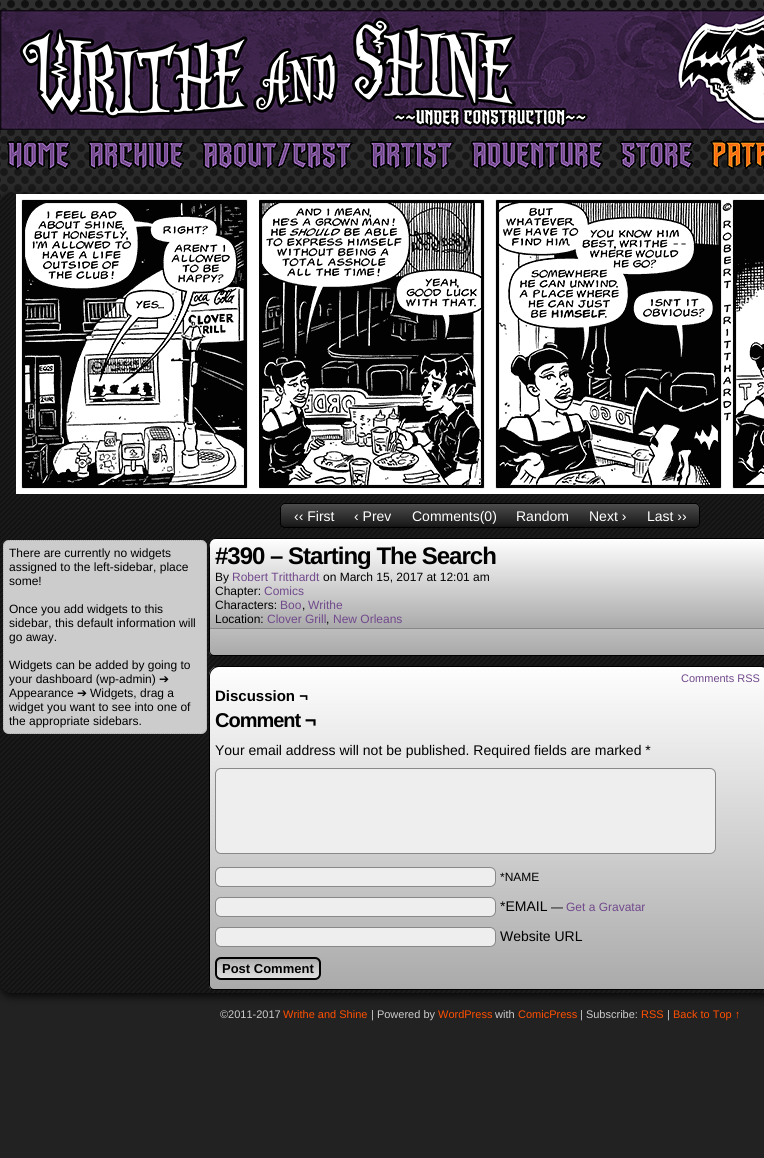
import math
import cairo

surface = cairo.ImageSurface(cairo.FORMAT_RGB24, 764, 1158)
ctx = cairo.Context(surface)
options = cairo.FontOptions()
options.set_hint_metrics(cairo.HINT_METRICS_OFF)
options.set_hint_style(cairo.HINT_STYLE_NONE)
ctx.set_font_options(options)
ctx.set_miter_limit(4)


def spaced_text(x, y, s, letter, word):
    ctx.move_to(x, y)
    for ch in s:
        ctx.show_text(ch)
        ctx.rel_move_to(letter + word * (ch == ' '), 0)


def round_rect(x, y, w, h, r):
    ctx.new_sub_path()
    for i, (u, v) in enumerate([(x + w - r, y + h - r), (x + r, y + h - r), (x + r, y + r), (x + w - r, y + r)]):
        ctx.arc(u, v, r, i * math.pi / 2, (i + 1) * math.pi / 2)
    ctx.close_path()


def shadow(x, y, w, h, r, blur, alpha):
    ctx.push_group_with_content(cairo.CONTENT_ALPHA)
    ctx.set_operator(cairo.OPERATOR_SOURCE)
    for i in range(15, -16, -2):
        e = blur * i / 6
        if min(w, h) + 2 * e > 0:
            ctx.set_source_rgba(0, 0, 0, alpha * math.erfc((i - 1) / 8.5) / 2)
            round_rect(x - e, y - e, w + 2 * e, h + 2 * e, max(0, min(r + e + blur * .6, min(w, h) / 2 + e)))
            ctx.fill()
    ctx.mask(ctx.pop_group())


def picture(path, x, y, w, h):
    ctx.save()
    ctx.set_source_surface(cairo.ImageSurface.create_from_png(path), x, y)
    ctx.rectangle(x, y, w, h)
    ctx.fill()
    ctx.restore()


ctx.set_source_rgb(0.133, 0.133, 0.133)
ctx.paint()
picture("img1.png", 0, 0, 764, 204)
picture("img2.png", 0, 10, 764, 120)
picture("img3.png", 7, 141, 63, 29)
picture("img4.png", 88, 141, 97, 29)
picture("img5.png", 201, 141, 152, 28)
picture("img6.png", 370, 141, 84, 28)
picture("img7.png", 471, 141, 132, 29)
picture("img8.png", 620, 141, 74, 28)
picture("img9.png", 710, 140, 54, 29)
ctx.set_source_rgb(0, 0, 0)
shadow(1, 196, 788, 799, 10, 5, 1)
ctx.set_source_rgb(0.067, 0.067, 0.067)
round_rect(0, 194, 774, 799, 10)
ctx.fill()
picture("img10.png", 0, 194, 764, 799)
picture("img11.png", 16, 194, 748, 300)
ctx.save()
round_rect(280, 503, 420, 25, 5)
ctx.clip()
gradient = cairo.LinearGradient(490, 504, 490, 527)
gradient.add_color_stop_rgba(0, 0.298, 0.298, 0.298, 1)
gradient.add_color_stop_rgba(0.91, 0.11, 0.11, 0.11, 1)
gradient.add_color_stop_rgba(1, 0.075, 0.075, 0.075, 1)
ctx.set_source(gradient)
ctx.rectangle(280, 504, 420, 23)
ctx.fill()
ctx.restore()
round_rect(280.5, 503.5, 419, 24, 4.5)
ctx.set_source_rgb(0, 0, 0)
ctx.set_line_width(1)
ctx.stroke()
ctx.select_font_face("Liberation Sans")
ctx.set_font_size(14)
ctx.set_source_rgb(1, 1, 1)
ctx.move_to(294, 521)
ctx.show_text("‹‹ First")
ctx.move_to(354, 521)
ctx.show_text("‹ Prev")
ctx.move_to(412, 521)
ctx.show_text("Comments(0)")
ctx.move_to(516, 521)
ctx.show_text("Random")
ctx.move_to(589, 521)
ctx.show_text("Next ›")
ctx.move_to(647, 521)
ctx.show_text("Last ››")
ctx.set_source_rgb(0.8, 0.8, 0.8)
round_rect(3, 540, 204, 194, 6)
ctx.fill()
ctx.new_path()
ctx.move_to(9, 540.5)
ctx.line_to(201, 540.5)
ctx.curve_to(204, 540.5, 206.5, 543, 206.5, 546)
ctx.line_to(206.5, 728)
ctx.curve_to(206.5, 731, 204, 733.5, 201, 733.5)
ctx.line_to(9, 733.5)
ctx.curve_to(6, 733.5, 3.5, 731, 3.5, 728)
ctx.line_to(3.5, 546)
ctx.curve_to(3.5, 543, 6, 540.5, 9, 540.5)
ctx.close_path()
ctx.set_source_rgb(0.667, 0.667, 0.667)
ctx.set_dash([1, 1])
ctx.stroke()
ctx.set_font_size(12)
ctx.set_source_rgb(0, 0, 0)
ctx.move_to(9, 557)
ctx.show_text("There are currently no widgets")
ctx.move_to(9, 571)
ctx.show_text("assigned to the left-sidebar, place")
ctx.move_to(9, 585)
ctx.show_text("some!")
ctx.move_to(9, 613)
ctx.show_text("Once you add widgets to this")
ctx.move_to(9, 627)
ctx.show_text("sidebar, this default information will")
ctx.move_to(9, 641)
ctx.show_text("go away.")
ctx.move_to(9, 669)
ctx.show_text("Widgets can be added by going to")
ctx.move_to(9, 683)
ctx.show_text("your dashboard (wp-admin)")
ctx.select_font_face("DejaVu Sans")
ctx.move_to(159, 683)
ctx.show_text("➔")
ctx.select_font_face("Liberation Sans")
ctx.move_to(9, 697)
ctx.show_text("Appearance")
ctx.select_font_face("DejaVu Sans")
ctx.move_to(77, 697)
ctx.show_text("➔")
ctx.select_font_face("Liberation Sans")
ctx.move_to(90, 697)
ctx.show_text("Widgets, drag a")
ctx.move_to(9, 711)
ctx.show_text("widget you want to see into one of")
ctx.move_to(9, 725)
ctx.show_text("the appropriate sidebars.")
ctx.save()
ctx.new_path()
ctx.move_to(219, 538)
ctx.line_to(761, 538)
ctx.curve_to(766.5, 538, 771, 542.5, 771, 548)
ctx.line_to(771, 651)
ctx.curve_to(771, 654, 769, 656, 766, 656)
ctx.line_to(214, 656)
ctx.curve_to(211, 656, 209, 654, 209, 651)
ctx.line_to(209, 548)
ctx.curve_to(209, 542.5, 213.5, 538, 219, 538)
ctx.close_path()
ctx.clip()
gradient = cairo.LinearGradient(490, 539, 490, 655)
gradient.add_color_stop_rgba(0, 0.996, 0.996, 0.996, 1)
gradient.add_color_stop_rgba(1, 0.667, 0.667, 0.667, 1)
ctx.set_source(gradient)
ctx.rectangle(209, 539, 555, 116)
ctx.fill()
ctx.restore()
ctx.new_path()
ctx.move_to(219, 538.5)
ctx.line_to(761, 538.5)
ctx.curve_to(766, 538.5, 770.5, 543, 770.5, 548)
ctx.line_to(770.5, 651)
ctx.curve_to(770.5, 653.5, 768.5, 655.5, 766, 655.5)
ctx.line_to(214, 655.5)
ctx.curve_to(211.5, 655.5, 209.5, 653.5, 209.5, 651)
ctx.line_to(209.5, 548)
ctx.curve_to(209.5, 543, 214, 538.5, 219, 538.5)
ctx.close_path()
ctx.set_dash([])
ctx.stroke()
gradient = cairo.LinearGradient(490, 539, 490, 628)
gradient.add_color_stop_rgba(0, 0.996, 0.996, 0.996, 1)
gradient.add_color_stop_rgba(1, 0.667, 0.667, 0.667, 1)
ctx.set_source(gradient)
ctx.new_path()
ctx.move_to(216, 539)
ctx.line_to(764, 539)
ctx.curve_to(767.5, 539, 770, 541.5, 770, 545)
ctx.line_to(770, 628)
ctx.line_to(210, 628)
ctx.line_to(210, 545)
ctx.curve_to(210, 541.5, 212.5, 539, 216, 539)
ctx.close_path()
ctx.fill()
ctx.set_source_rgb(0.533, 0.533, 0.533)
ctx.rectangle(210, 628, 554, 1)
ctx.fill()
ctx.select_font_face("Liberation Sans", cairo.FONT_SLANT_NORMAL, cairo.FONT_WEIGHT_BOLD)
ctx.set_font_size(24)
ctx.set_source_rgb(0, 0, 0)
spaced_text(215, 564, "#390 – Starting The Search", -1, 0)
ctx.select_font_face("Liberation Sans")
ctx.set_font_size(12)
ctx.move_to(215, 581)
ctx.show_text("By")
ctx.set_source_rgb(0.443, 0.286, 0.549)
ctx.move_to(232, 581)
ctx.show_text("Robert Tritthardt")
ctx.set_source_rgb(0, 0, 0)
ctx.move_to(323, 581)
ctx.show_text("on March 15, 2017 at 12:01 am")
ctx.move_to(215, 595)
ctx.show_text("Chapter:")
ctx.set_source_rgb(0.443, 0.286, 0.549)
ctx.move_to(264, 595)
ctx.show_text("Comics")
ctx.set_source_rgb(0, 0, 0)
ctx.move_to(215, 609)
ctx.show_text("Characters:")
ctx.set_source_rgb(0.443, 0.286, 0.549)
ctx.move_to(280, 609)
ctx.show_text("Boo")
ctx.set_source_rgb(0, 0, 0)
ctx.move_to(302, 609)
ctx.show_text(",")
ctx.set_source_rgb(0.443, 0.286, 0.549)
ctx.move_to(308, 609)
ctx.show_text("Writhe")
ctx.set_source_rgb(0, 0, 0)
ctx.move_to(215, 623)
ctx.show_text("Location:")
ctx.set_source_rgb(0.443, 0.286, 0.549)
ctx.move_to(267, 623)
ctx.show_text("Clover Grill")
ctx.set_source_rgb(0, 0, 0)
ctx.move_to(326, 623)
ctx.show_text(",")
ctx.set_source_rgb(0.443, 0.286, 0.549)
ctx.move_to(333, 623)
ctx.show_text("New Orleans")
ctx.save()
ctx.new_path()
ctx.move_to(219, 666)
ctx.line_to(761, 666)
ctx.curve_to(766.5, 666, 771, 670.5, 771, 676)
ctx.line_to(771, 985)
ctx.curve_to(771, 988, 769, 990, 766, 990)
ctx.line_to(214, 990)
ctx.curve_to(211, 990, 209, 988, 209, 985)
ctx.line_to(209, 676)
ctx.curve_to(209, 670.5, 213.5, 666, 219, 666)
ctx.close_path()
ctx.clip()
gradient = cairo.LinearGradient(490, 667, 490, 989)
gradient.add_color_stop_rgba(0, 0.996, 0.996, 0.996, 1)
gradient.add_color_stop_rgba(1, 0.667, 0.667, 0.667, 1)
ctx.set_source(gradient)
ctx.rectangle(209, 667, 555, 322)
ctx.fill()
ctx.restore()
ctx.new_path()
ctx.move_to(219, 666.5)
ctx.line_to(761, 666.5)
ctx.curve_to(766, 666.5, 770.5, 671, 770.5, 676)
ctx.line_to(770.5, 985)
ctx.curve_to(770.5, 987.5, 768.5, 989.5, 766, 989.5)
ctx.line_to(214, 989.5)
ctx.curve_to(211.5, 989.5, 209.5, 987.5, 209.5, 985)
ctx.line_to(209.5, 676)
ctx.curve_to(209.5, 671, 214, 666.5, 219, 666.5)
ctx.close_path()
ctx.set_source_rgb(0, 0, 0)
ctx.stroke()
ctx.set_font_size(11)
ctx.set_source_rgb(0.443, 0.286, 0.549)
ctx.move_to(681, 682)
ctx.show_text("Comments RSS")
ctx.select_font_face("Liberation Sans", cairo.FONT_SLANT_NORMAL, cairo.FONT_WEIGHT_BOLD)
ctx.set_font_size(15)
ctx.set_source_rgb(0, 0, 0)
ctx.move_to(215, 701)
ctx.show_text("Discussion ¬")
ctx.set_font_size(20)
spaced_text(215, 727, "Comment ¬", -1, 0)
ctx.select_font_face("Liberation Sans")
ctx.set_font_size(14)
ctx.move_to(215, 755)
ctx.show_text("Your email address will not be published. Required fields are marked *")
ctx.set_source_rgb(0.933, 0.933, 0.933)
round_rect(215.5, 768.5, 500, 85, 5.5)
ctx.fill_preserve()
ctx.set_source_rgb(0.533, 0.533, 0.533)
ctx.stroke()
ctx.set_source_rgb(0.933, 0.933, 0.933)
round_rect(215.5, 867.5, 280, 19, 5.5)
ctx.fill_preserve()
ctx.set_source_rgb(0.533, 0.533, 0.533)
ctx.stroke()
ctx.set_font_size(12)
ctx.set_source_rgb(0, 0, 0)
ctx.move_to(500, 881)
ctx.show_text("*NAME")
ctx.set_source_rgb(0.933, 0.933, 0.933)
round_rect(215.5, 897.5, 280, 19, 5.5)
ctx.fill_preserve()
ctx.set_source_rgb(0.533, 0.533, 0.533)
ctx.stroke()
ctx.set_font_size(14)
ctx.set_source_rgb(0, 0, 0)
ctx.move_to(500, 911)
ctx.show_text("*EMAIL")
ctx.set_font_size(12)
ctx.move_to(551, 911)
ctx.show_text("—")
ctx.set_source_rgb(0.443, 0.286, 0.549)
ctx.move_to(566, 911)
ctx.show_text("Get a Gravatar")
ctx.set_source_rgb(0.933, 0.933, 0.933)
round_rect(215.5, 927.5, 280, 19, 5.5)
ctx.fill_preserve()
ctx.set_source_rgb(0.533, 0.533, 0.533)
ctx.stroke()
ctx.set_font_size(14)
ctx.set_source_rgb(0, 0, 0)
ctx.move_to(500, 941)
ctx.show_text("Website URL")
ctx.save()
round_rect(215, 957, 106, 23, 6)
ctx.clip()
gradient = cairo.LinearGradient(268, 959, 268, 978)
gradient.add_color_stop_rgba(0, 0.667, 0.667, 0.667, 1)
gradient.add_color_stop_rgba(0.5, 0.8, 0.8, 0.8, 1)
gradient.add_color_stop_rgba(1, 0.867, 0.867, 0.867, 1)
ctx.set_source(gradient)
ctx.rectangle(215, 959, 106, 19)
ctx.fill()
ctx.restore()
round_rect(216, 958, 104, 21, 5)
ctx.set_line_width(2)
ctx.stroke()
ctx.select_font_face("Liberation Sans", cairo.FONT_SLANT_NORMAL, cairo.FONT_WEIGHT_BOLD)
ctx.set_font_size(13)
ctx.move_to(222, 973)
ctx.show_text("Post Comment")
ctx.select_font_face("Liberation Sans")
ctx.set_font_size(11)
ctx.set_source_rgb(0.8, 0.8, 0.8)
ctx.move_to(220, 1018)
ctx.show_text("©2011-2017")
ctx.set_source_rgb(1, 0.31, 0)
ctx.move_to(283, 1018)
ctx.show_text("Writhe and Shine")
ctx.set_source_rgb(0.8, 0.8, 0.8)
ctx.move_to(371, 1018)
ctx.show_text("| Powered by")
ctx.set_source_rgb(1, 0.31, 0)
ctx.move_to(438, 1018)
ctx.show_text("WordPress")
ctx.set_source_rgb(0.8, 0.8, 0.8)
ctx.move_to(495, 1018)
ctx.show_text("with")
ctx.set_source_rgb(1, 0.31, 0)
ctx.move_to(518, 1018)
ctx.show_text("ComicPress")
ctx.set_source_rgb(0.8, 0.8, 0.8)
ctx.move_to(580, 1018)
ctx.show_text("| Subscribe:")
ctx.set_source_rgb(1, 0.31, 0)
ctx.move_to(641, 1018)
ctx.show_text("RSS")
ctx.set_source_rgb(0.8, 0.8, 0.8)
ctx.move_to(667, 1018)
ctx.show_text("|")
ctx.set_source_rgb(1, 0.31, 0)
ctx.move_to(673, 1018)
ctx.show_text("Back to Top ↑")
surface.write_to_png("page.png")
